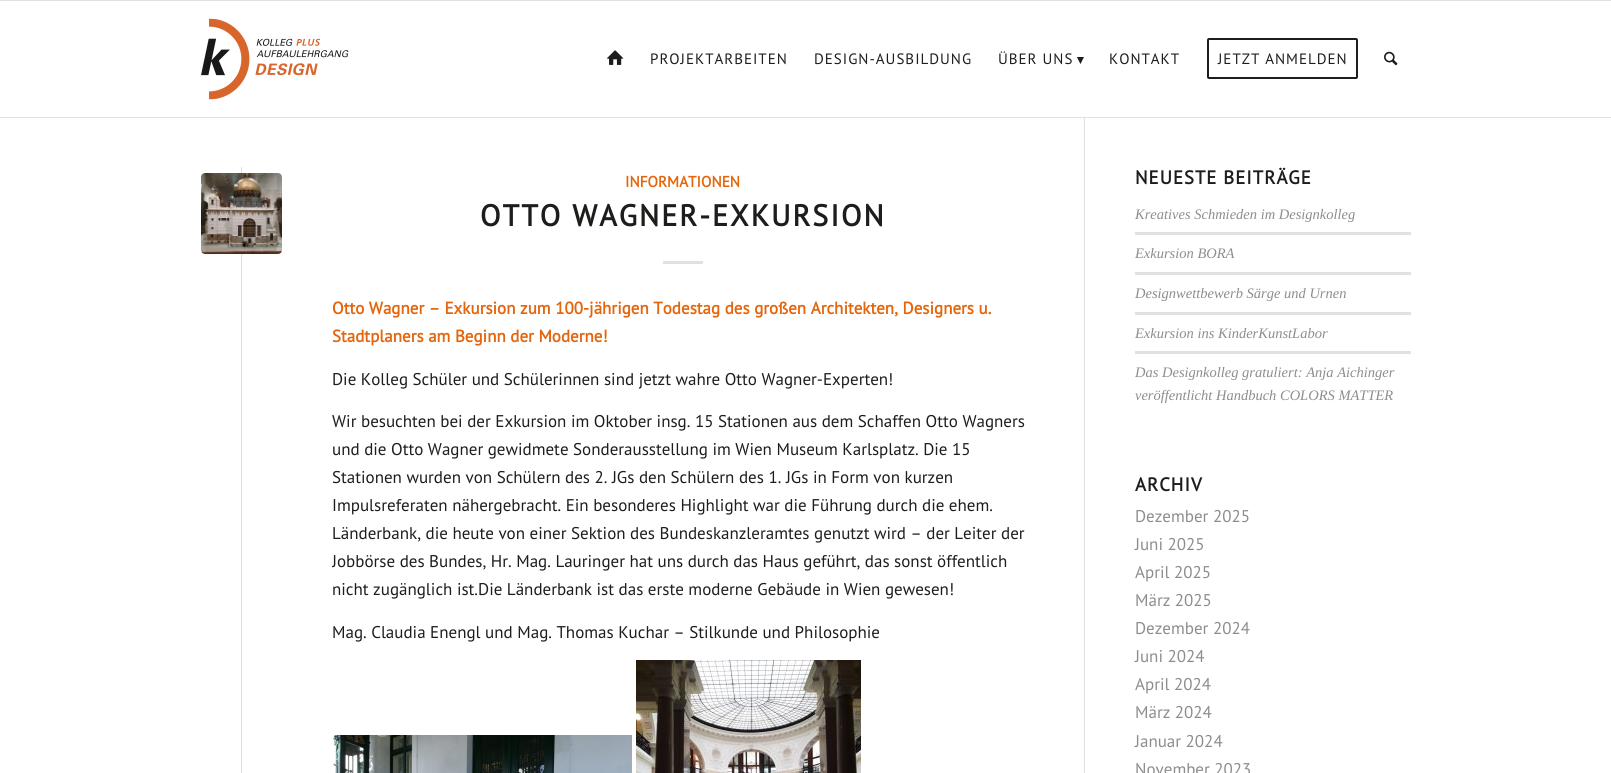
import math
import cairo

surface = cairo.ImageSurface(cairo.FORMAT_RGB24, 1611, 773)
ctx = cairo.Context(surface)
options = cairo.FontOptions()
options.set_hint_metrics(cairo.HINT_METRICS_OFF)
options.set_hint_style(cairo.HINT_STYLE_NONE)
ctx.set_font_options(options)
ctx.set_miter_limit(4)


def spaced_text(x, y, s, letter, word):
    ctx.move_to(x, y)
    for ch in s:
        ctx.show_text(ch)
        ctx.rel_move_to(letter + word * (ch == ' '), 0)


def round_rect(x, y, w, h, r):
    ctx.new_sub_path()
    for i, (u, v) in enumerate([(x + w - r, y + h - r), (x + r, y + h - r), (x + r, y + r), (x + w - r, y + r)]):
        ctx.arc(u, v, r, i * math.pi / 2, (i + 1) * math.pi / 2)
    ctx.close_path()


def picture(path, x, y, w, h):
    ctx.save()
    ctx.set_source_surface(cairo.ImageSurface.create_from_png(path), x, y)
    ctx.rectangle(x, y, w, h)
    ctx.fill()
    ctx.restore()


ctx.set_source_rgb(1, 1, 1)
ctx.paint()
ctx.set_source_rgb(0.882, 0.882, 0.882)
ctx.rectangle(0, 0, 1611, 1)
ctx.fill()
ctx.rectangle(1084, 117, 1, 656)
ctx.fill()
ctx.rectangle(0, 117, 1611, 1)
ctx.fill()
picture("img1.png", 201, 18, 148, 82)
picture("img2.png", 607, 50, 17, 15)
ctx.select_font_face("PT Sans")
ctx.set_font_size(15)
ctx.set_source_rgb(0.114, 0.114, 0.106)
spaced_text(650, 64, "PROJEKTARBEITEN", 1, 0)
spaced_text(814, 64, "DESIGN-AUSBILDUNG", 1, 0)
spaced_text(998, 64, "ÜBER UNS", 1, 0)
ctx.select_font_face("DejaVu Sans", cairo.FONT_SLANT_NORMAL, cairo.FONT_WEIGHT_BOLD)
ctx.set_font_size(13)
ctx.move_to(1077, 64)
ctx.show_text("▾")
ctx.select_font_face("PT Sans")
ctx.set_font_size(15)
spaced_text(1109, 64, "KONTAKT", 1, 0)
round_rect(1208, 39, 149, 39, 1)
ctx.stroke()
spaced_text(1218, 64, "JETZT ANMELDEN", 1, 0)
picture("img3.png", 1384, 51, 14, 15)
ctx.set_source_rgb(0.882, 0.882, 0.882)
ctx.rectangle(241, 167, 1, 606)
ctx.fill()
picture("img4.png", 201, 173, 81, 81)
ctx.select_font_face("PT Sans", cairo.FONT_SLANT_NORMAL, cairo.FONT_WEIGHT_BOLD)
ctx.set_font_size(15.25)
ctx.set_source_rgb(0.894, 0.396, 0.043)
ctx.move_to(625, 187)
ctx.show_text("INFORMATIONEN")
ctx.set_font_size(30)
ctx.set_source_rgb(0.114, 0.114, 0.106)
spaced_text(480, 226, "OTTO WAGNER-EXKURSION", 2, 0)
ctx.set_source_rgb(0.882, 0.882, 0.882)
ctx.rectangle(663, 261, 40, 3)
ctx.fill()
ctx.set_font_size(17)
ctx.set_source_rgb(0.894, 0.396, 0.043)
ctx.move_to(332, 314)
ctx.show_text("Otto Wagner – Exkursion zum 100-jährigen Todestag des großen Architekten, Designers u.")
ctx.move_to(332, 342)
ctx.show_text("Stadtplaners am Beginn der Moderne!")
ctx.select_font_face("PT Sans")
ctx.set_source_rgb(0.114, 0.114, 0.106)
ctx.move_to(332, 385)
ctx.show_text("Die Kolleg Schüler und Schülerinnen sind jetzt wahre Otto Wagner-Experten!")
ctx.move_to(332, 427)
ctx.show_text("Wir besuchten bei der Exkursion im Oktober insg. 15 Stationen aus dem Schaffen Otto Wagners")
ctx.move_to(332, 455)
ctx.show_text("und die Otto Wagner gewidmete Sonderausstellung im Wien Museum Karlsplatz. Die 15")
ctx.move_to(332, 483)
ctx.show_text("Stationen wurden von Schülern des 2. JGs den Schülern des 1. JGs in Form von kurzen")
ctx.move_to(332, 511)
ctx.show_text("Impulsreferaten nähergebracht. Ein besonderes Highlight war die Führung durch die ehem.")
ctx.move_to(332, 539)
ctx.show_text("Länderbank, die heute von einer Sektion des Bundeskanzleramtes genutzt wird – der Leiter der")
ctx.save()
ctx.rectangle(332, 167, 752, 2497)
ctx.clip()
ctx.move_to(332, 567)
ctx.show_text("Jobbörse des Bundes, Hr. Mag. Lauringer hat uns durch das Haus geführt, das sonst öffentlich")
ctx.restore()
ctx.move_to(332, 595)
ctx.show_text("nicht zugänglich ist.Die Länderbank ist das erste moderne Gebäude in Wien gewesen!")
ctx.move_to(332, 638)
ctx.show_text("Mag. Claudia Enengl und Mag. Thomas Kuchar – Stilkunde und Philosophie")
picture("img5.png", 332, 735, 300, 38)
picture("img6.png", 636, 660, 225, 113)
ctx.select_font_face("PT Sans", cairo.FONT_SLANT_NORMAL, cairo.FONT_WEIGHT_BOLD)
ctx.set_font_size(18.75)
spaced_text(1135, 184, "NEUESTE BEITRÄGE", 1, 0)
ctx.select_font_face("Liberation Serif", cairo.FONT_SLANT_ITALIC)
ctx.set_font_size(14.5)
ctx.set_source_rgb(0.553, 0.553, 0.553)
ctx.move_to(1135, 219)
ctx.show_text("Kreatives Schmieden im Designkolleg")
ctx.set_source_rgb(0.882, 0.882, 0.882)
ctx.rectangle(1135, 232, 276, 3)
ctx.fill()
ctx.set_source_rgb(0.553, 0.553, 0.553)
ctx.move_to(1135, 258)
ctx.show_text("Exkursion BORA")
ctx.set_source_rgb(0.882, 0.882, 0.882)
ctx.rectangle(1135, 272, 276, 3)
ctx.fill()
ctx.set_source_rgb(0.553, 0.553, 0.553)
ctx.move_to(1135, 298)
ctx.show_text("Designwettbewerb Särge und Urnen")
ctx.set_source_rgb(0.882, 0.882, 0.882)
ctx.rectangle(1135, 312, 276, 3)
ctx.fill()
ctx.set_source_rgb(0.553, 0.553, 0.553)
ctx.move_to(1135, 338)
ctx.show_text("Exkursion ins KinderKunstLabor")
ctx.set_source_rgb(0.882, 0.882, 0.882)
ctx.rectangle(1135, 351, 276, 3)
ctx.fill()
ctx.set_source_rgb(0.553, 0.553, 0.553)
ctx.move_to(1135, 377)
ctx.show_text("Das Designkolleg gratuliert: Anja Aichinger")
ctx.move_to(1135, 400)
ctx.show_text("veröffentlicht Handbuch COLORS MATTER")
ctx.select_font_face("PT Sans", cairo.FONT_SLANT_NORMAL, cairo.FONT_WEIGHT_BOLD)
ctx.set_font_size(18.75)
ctx.set_source_rgb(0.114, 0.114, 0.106)
spaced_text(1135, 491, "ARCHIV", 1, 0)
ctx.select_font_face("PT Sans")
ctx.set_font_size(17)
ctx.set_source_rgb(0.553, 0.553, 0.553)
ctx.move_to(1135, 522)
ctx.show_text("Dezember 2025")
ctx.move_to(1135, 550)
ctx.show_text("Juni 2025")
ctx.move_to(1135, 578)
ctx.show_text("April 2025")
ctx.move_to(1135, 606)
ctx.show_text("März 2025")
ctx.move_to(1135, 634)
ctx.show_text("Dezember 2024")
ctx.move_to(1135, 662)
ctx.show_text("Juni 2024")
ctx.move_to(1135, 690)
ctx.show_text("April 2024")
ctx.move_to(1135, 718)
ctx.show_text("März 2024")
ctx.move_to(1135, 747)
ctx.show_text("Januar 2024")
ctx.move_to(1135, 775)
ctx.show_text("November 2023")
surface.write_to_png("page.png")
